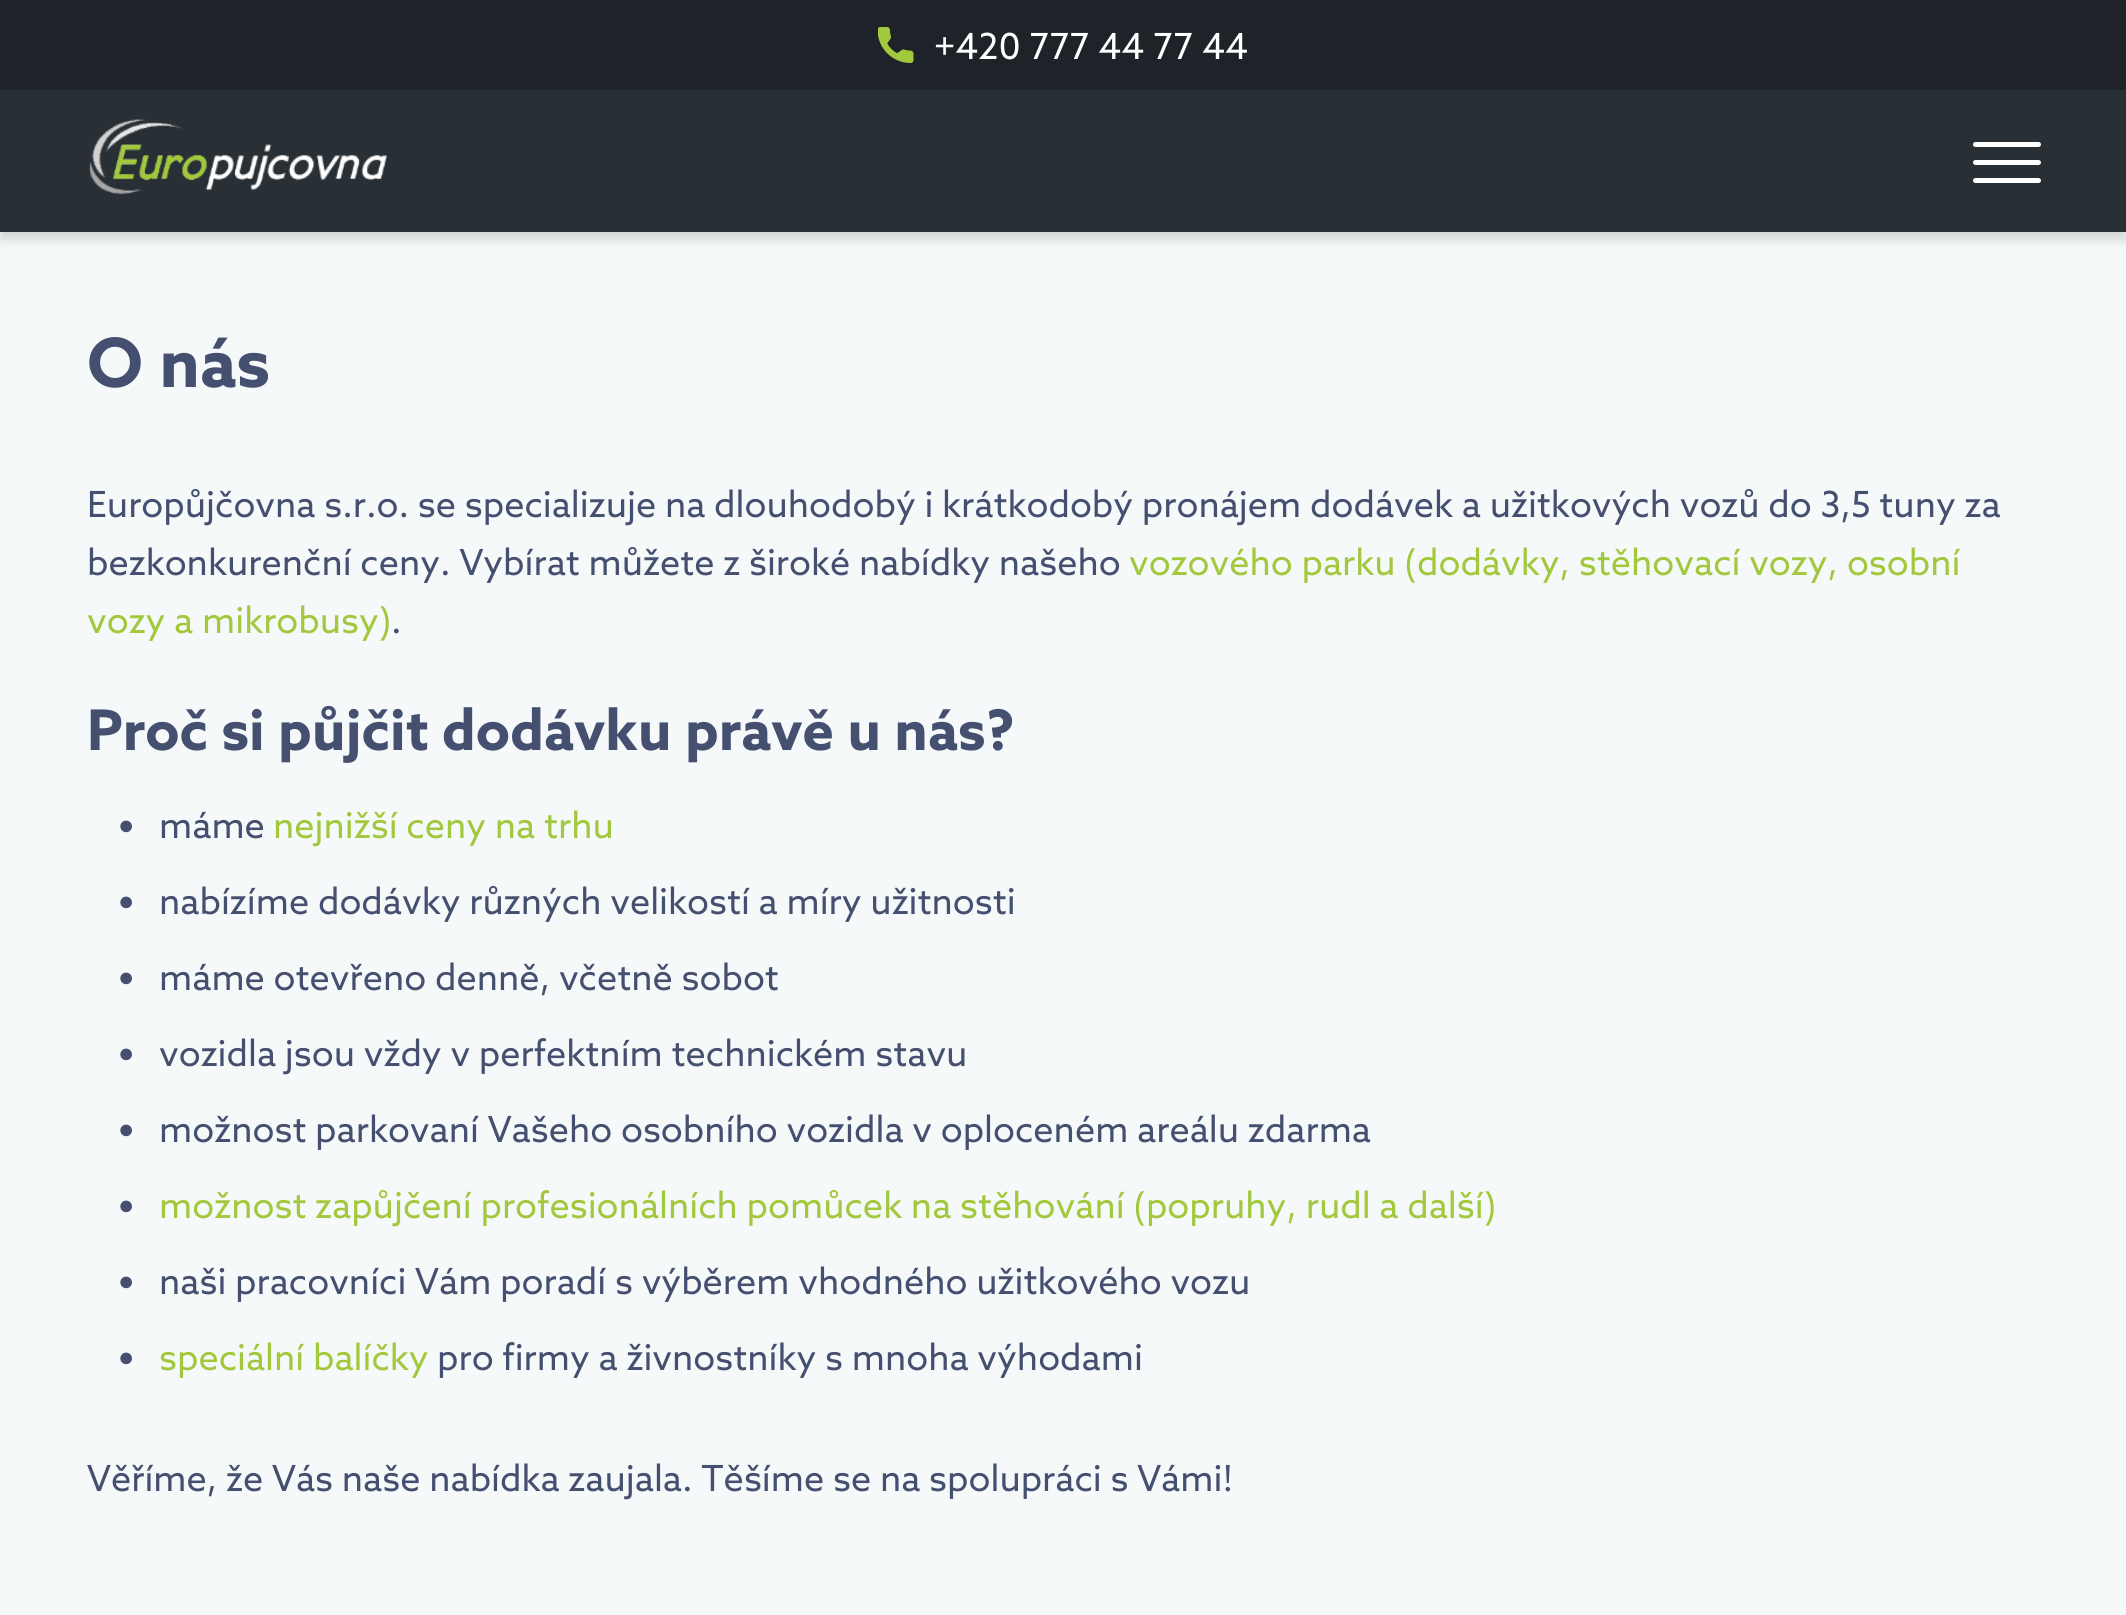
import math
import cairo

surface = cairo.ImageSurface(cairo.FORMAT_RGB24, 2126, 1615)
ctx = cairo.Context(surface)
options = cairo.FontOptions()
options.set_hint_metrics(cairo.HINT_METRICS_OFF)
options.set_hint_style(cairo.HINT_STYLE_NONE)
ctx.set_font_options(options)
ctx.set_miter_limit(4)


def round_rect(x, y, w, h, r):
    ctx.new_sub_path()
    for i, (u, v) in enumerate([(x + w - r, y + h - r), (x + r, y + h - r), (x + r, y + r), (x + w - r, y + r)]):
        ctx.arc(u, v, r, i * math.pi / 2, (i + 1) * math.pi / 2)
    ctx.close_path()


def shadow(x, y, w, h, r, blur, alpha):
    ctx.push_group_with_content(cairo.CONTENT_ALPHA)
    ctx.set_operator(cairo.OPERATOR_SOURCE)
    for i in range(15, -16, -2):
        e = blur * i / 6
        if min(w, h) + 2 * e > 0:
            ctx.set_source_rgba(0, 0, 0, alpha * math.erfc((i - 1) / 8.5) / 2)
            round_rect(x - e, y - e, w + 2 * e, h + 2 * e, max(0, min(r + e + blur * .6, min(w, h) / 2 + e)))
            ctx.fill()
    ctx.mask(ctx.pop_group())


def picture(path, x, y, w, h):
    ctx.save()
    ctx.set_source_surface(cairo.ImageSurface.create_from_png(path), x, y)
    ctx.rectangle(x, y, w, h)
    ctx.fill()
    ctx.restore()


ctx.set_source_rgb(0.961, 0.973, 0.98)
ctx.paint()
ctx.set_source_rgb(0, 0, 0)
shadow(0, 7, 2126, 232, 0, 6, 0.16)
ctx.set_source_rgb(0.157, 0.184, 0.208)
ctx.rectangle(0, 90, 2126, 142)
ctx.fill()
ctx.set_source_rgb(0.118, 0.137, 0.161)
ctx.rectangle(0, 0, 2126, 90)
ctx.fill()
picture("img1.png", 878, 27, 36, 36)
ctx.select_font_face("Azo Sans")
ctx.set_font_size(36)
ctx.set_source_rgb(1, 1, 1)
ctx.move_to(934, 59)
ctx.show_text("+420 777 44 77 44")
picture("img2.png", 89, 118, 298, 77)
round_rect(1973, 142, 68, 5, 2.5)
ctx.fill()
round_rect(1973, 160, 68, 5, 2.5)
ctx.fill()
round_rect(1973, 178, 68, 5, 2.5)
ctx.fill()
ctx.select_font_face("Azo Sans", cairo.FONT_SLANT_NORMAL, cairo.FONT_WEIGHT_BOLD)
ctx.set_font_size(68)
ctx.set_source_rgb(0.271, 0.31, 0.435)
ctx.move_to(87, 387)
ctx.show_text("O nás")
ctx.select_font_face("Azo Sans")
ctx.set_font_size(36)
ctx.move_to(87, 517)
ctx.show_text("Europůjčovna s.r.o. se specializuje na dlouhodobý i krátkodobý pronájem dodávek a užitkových vozů do 3,5 tuny za")
ctx.move_to(87, 575)
ctx.show_text("bezkonkurenční ceny. Vybírat můžete z široké nabídky našeho")
ctx.set_source_rgb(0.635, 0.788, 0.239)
ctx.move_to(1129, 575)
ctx.show_text("vozového parku (dodávky, stěhovací vozy, osobní")
ctx.move_to(87, 633)
ctx.show_text("vozy a mikrobusy)")
ctx.set_source_rgb(0.271, 0.31, 0.435)
ctx.move_to(391, 633)
ctx.show_text(".")
ctx.select_font_face("Azo Sans", cairo.FONT_SLANT_NORMAL, cairo.FONT_WEIGHT_BOLD)
ctx.set_font_size(56)
ctx.move_to(87, 750)
ctx.show_text("Proč si půjčit dodávku právě u nás?")
ctx.select_font_face("Liberation Sans")
ctx.set_font_size(27)
ctx.move_to(118, 834)
ctx.show_text("●")
ctx.select_font_face("Azo Sans")
ctx.set_font_size(36)
ctx.move_to(159, 838)
ctx.show_text("máme")
ctx.set_source_rgb(0.635, 0.788, 0.239)
ctx.move_to(273, 838)
ctx.show_text("nejnižší ceny na trhu")
ctx.select_font_face("Liberation Sans")
ctx.set_font_size(27)
ctx.set_source_rgb(0.271, 0.31, 0.435)
ctx.move_to(118, 910)
ctx.show_text("●")
ctx.select_font_face("Azo Sans")
ctx.set_font_size(36)
ctx.move_to(159, 914)
ctx.show_text("nabízíme dodávky různých velikostí a míry užitnosti")
ctx.select_font_face("Liberation Sans")
ctx.set_font_size(27)
ctx.move_to(118, 986)
ctx.show_text("●")
ctx.select_font_face("Azo Sans")
ctx.set_font_size(36)
ctx.move_to(159, 990)
ctx.show_text("máme otevřeno denně, včetně sobot")
ctx.select_font_face("Liberation Sans")
ctx.set_font_size(27)
ctx.move_to(118, 1062)
ctx.show_text("●")
ctx.select_font_face("Azo Sans")
ctx.set_font_size(36)
ctx.move_to(159, 1066)
ctx.show_text("vozidla jsou vždy v perfektním technickém stavu")
ctx.select_font_face("Liberation Sans")
ctx.set_font_size(27)
ctx.move_to(118, 1138)
ctx.show_text("●")
ctx.select_font_face("Azo Sans")
ctx.set_font_size(36)
ctx.move_to(159, 1142)
ctx.show_text("možnost parkovaní Vašeho osobního vozidla v oploceném areálu zdarma")
ctx.select_font_face("Liberation Sans")
ctx.set_font_size(27)
ctx.move_to(118, 1214)
ctx.show_text("●")
ctx.select_font_face("Azo Sans")
ctx.set_font_size(36)
ctx.set_source_rgb(0.635, 0.788, 0.239)
ctx.move_to(159, 1218)
ctx.show_text("možnost zapůjčení profesionálních pomůcek na stěhování (popruhy, rudl a další)")
ctx.select_font_face("Liberation Sans")
ctx.set_font_size(27)
ctx.set_source_rgb(0.271, 0.31, 0.435)
ctx.move_to(118, 1290)
ctx.show_text("●")
ctx.select_font_face("Azo Sans")
ctx.set_font_size(36)
ctx.move_to(159, 1294)
ctx.show_text("naši pracovníci Vám poradí s výběrem vhodného užitkového vozu")
ctx.select_font_face("Liberation Sans")
ctx.set_font_size(27)
ctx.move_to(118, 1366)
ctx.show_text("●")
ctx.select_font_face("Azo Sans")
ctx.set_font_size(36)
ctx.set_source_rgb(0.635, 0.788, 0.239)
ctx.move_to(159, 1370)
ctx.show_text("speciální balíčky")
ctx.set_source_rgb(0.271, 0.31, 0.435)
ctx.move_to(437, 1370)
ctx.show_text("pro firmy a živnostníky s mnoha výhodami")
ctx.move_to(87, 1491)
ctx.show_text("Věříme, že Vás naše nabídka zaujala. Těšíme se na spolupráci s Vámi!")
surface.write_to_png("page.png")
